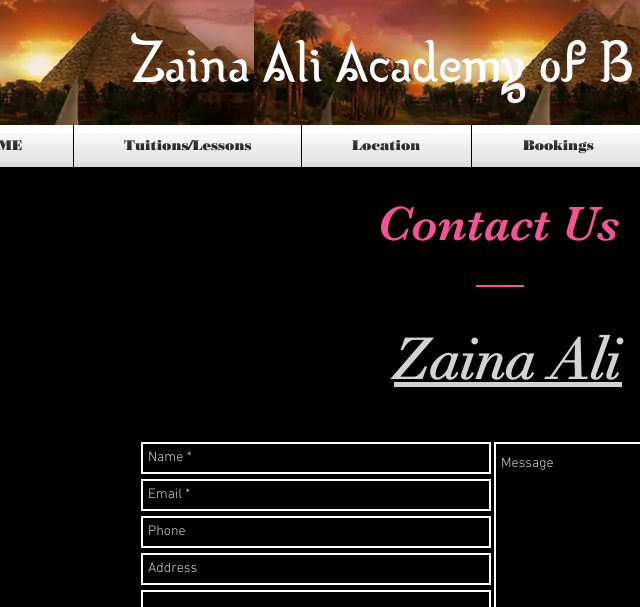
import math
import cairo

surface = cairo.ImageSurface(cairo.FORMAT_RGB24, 640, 607)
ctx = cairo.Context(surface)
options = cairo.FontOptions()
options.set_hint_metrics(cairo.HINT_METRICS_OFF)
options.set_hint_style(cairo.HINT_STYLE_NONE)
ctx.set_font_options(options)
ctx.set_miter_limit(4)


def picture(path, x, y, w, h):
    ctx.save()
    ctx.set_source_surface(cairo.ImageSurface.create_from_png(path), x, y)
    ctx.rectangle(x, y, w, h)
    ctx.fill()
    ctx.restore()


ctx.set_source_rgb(0, 0, 0)
ctx.paint()
picture("img1.png", 0, 0, 640, 125)
ctx.select_font_face("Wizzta")
ctx.set_font_size(76)
ctx.set_source_rgb(1, 1, 1)
ctx.move_to(130, 82)
ctx.show_text("Zaina Ali Academy of B")
ctx.rectangle(0, 125, 73, 42)
ctx.fill()
ctx.select_font_face("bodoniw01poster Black")
ctx.set_font_size(14)
ctx.set_source_rgb(0, 0, 0)
ctx.move_to(-2, 150)
ctx.show_text("ME")
picture("img2.png", 0, 140, 22, 10)
picture("img3.png", 0, 133, 73, 34)
ctx.set_source_rgb(1, 1, 1)
ctx.rectangle(74, 125, 227, 42)
ctx.fill()
ctx.set_source_rgb(0, 0, 0)
ctx.move_to(124, 150)
ctx.show_text("Tuitions/Lessons")
picture("img4.png", 124, 140, 127, 11)
picture("img5.png", 74, 133, 227, 34)
ctx.set_source_rgb(1, 1, 1)
ctx.rectangle(302, 125, 169, 42)
ctx.fill()
ctx.set_source_rgb(0, 0, 0)
ctx.move_to(352, 150)
ctx.show_text("Location")
picture("img6.png", 352, 140, 69, 11)
picture("img7.png", 302, 133, 169, 34)
ctx.set_source_rgb(1, 1, 1)
ctx.rectangle(472, 125, 168, 42)
ctx.fill()
ctx.set_source_rgb(0, 0, 0)
ctx.move_to(523, 150)
ctx.show_text("Bookings")
picture("img8.png", 522, 140, 71, 13)
picture("img9.png", 472, 133, 168, 34)
ctx.select_font_face("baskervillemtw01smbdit")
ctx.set_font_size(50)
ctx.set_source_rgb(0.961, 0.325, 0.58)
ctx.move_to(377, 240)
ctx.show_text("Contact Us")
ctx.rectangle(476, 285, 48, 2)
ctx.fill()
ctx.select_font_face("didot", cairo.FONT_SLANT_NORMAL, cairo.FONT_WEIGHT_BOLD)
ctx.set_font_size(56)
ctx.set_source_rgb(0.827, 0.827, 0.827)
ctx.move_to(394, 379)
ctx.show_text("Zaina Ali")
ctx.rectangle(394, 382, 228, 5)
ctx.fill()
ctx.rectangle(142, 443, 348, 30)
ctx.set_source_rgb(1, 1, 1)
ctx.stroke()
ctx.select_font_face("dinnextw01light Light")
ctx.set_font_size(14)
ctx.set_source_rgb(0.827, 0.827, 0.827)
ctx.move_to(148, 461)
ctx.show_text("Name *")
ctx.rectangle(495, 443, 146, 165)
ctx.set_source_rgb(1, 1, 1)
ctx.stroke()
ctx.set_source_rgb(0.827, 0.827, 0.827)
ctx.move_to(501, 467)
ctx.show_text("Message")
ctx.rectangle(142, 480, 348, 30)
ctx.set_source_rgb(1, 1, 1)
ctx.stroke()
ctx.set_source_rgb(0.827, 0.827, 0.827)
ctx.move_to(148, 498)
ctx.show_text("Email *")
ctx.rectangle(142, 517, 348, 30)
ctx.set_source_rgb(1, 1, 1)
ctx.stroke()
ctx.set_source_rgb(0.827, 0.827, 0.827)
ctx.move_to(148, 535)
ctx.show_text("Phone")
ctx.rectangle(142, 554, 348, 30)
ctx.set_source_rgb(1, 1, 1)
ctx.stroke()
ctx.set_source_rgb(0.827, 0.827, 0.827)
ctx.move_to(148, 572)
ctx.show_text("Address")
ctx.rectangle(142, 591, 348, 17)
ctx.set_source_rgb(1, 1, 1)
ctx.stroke()
surface.write_to_png("page.png")
